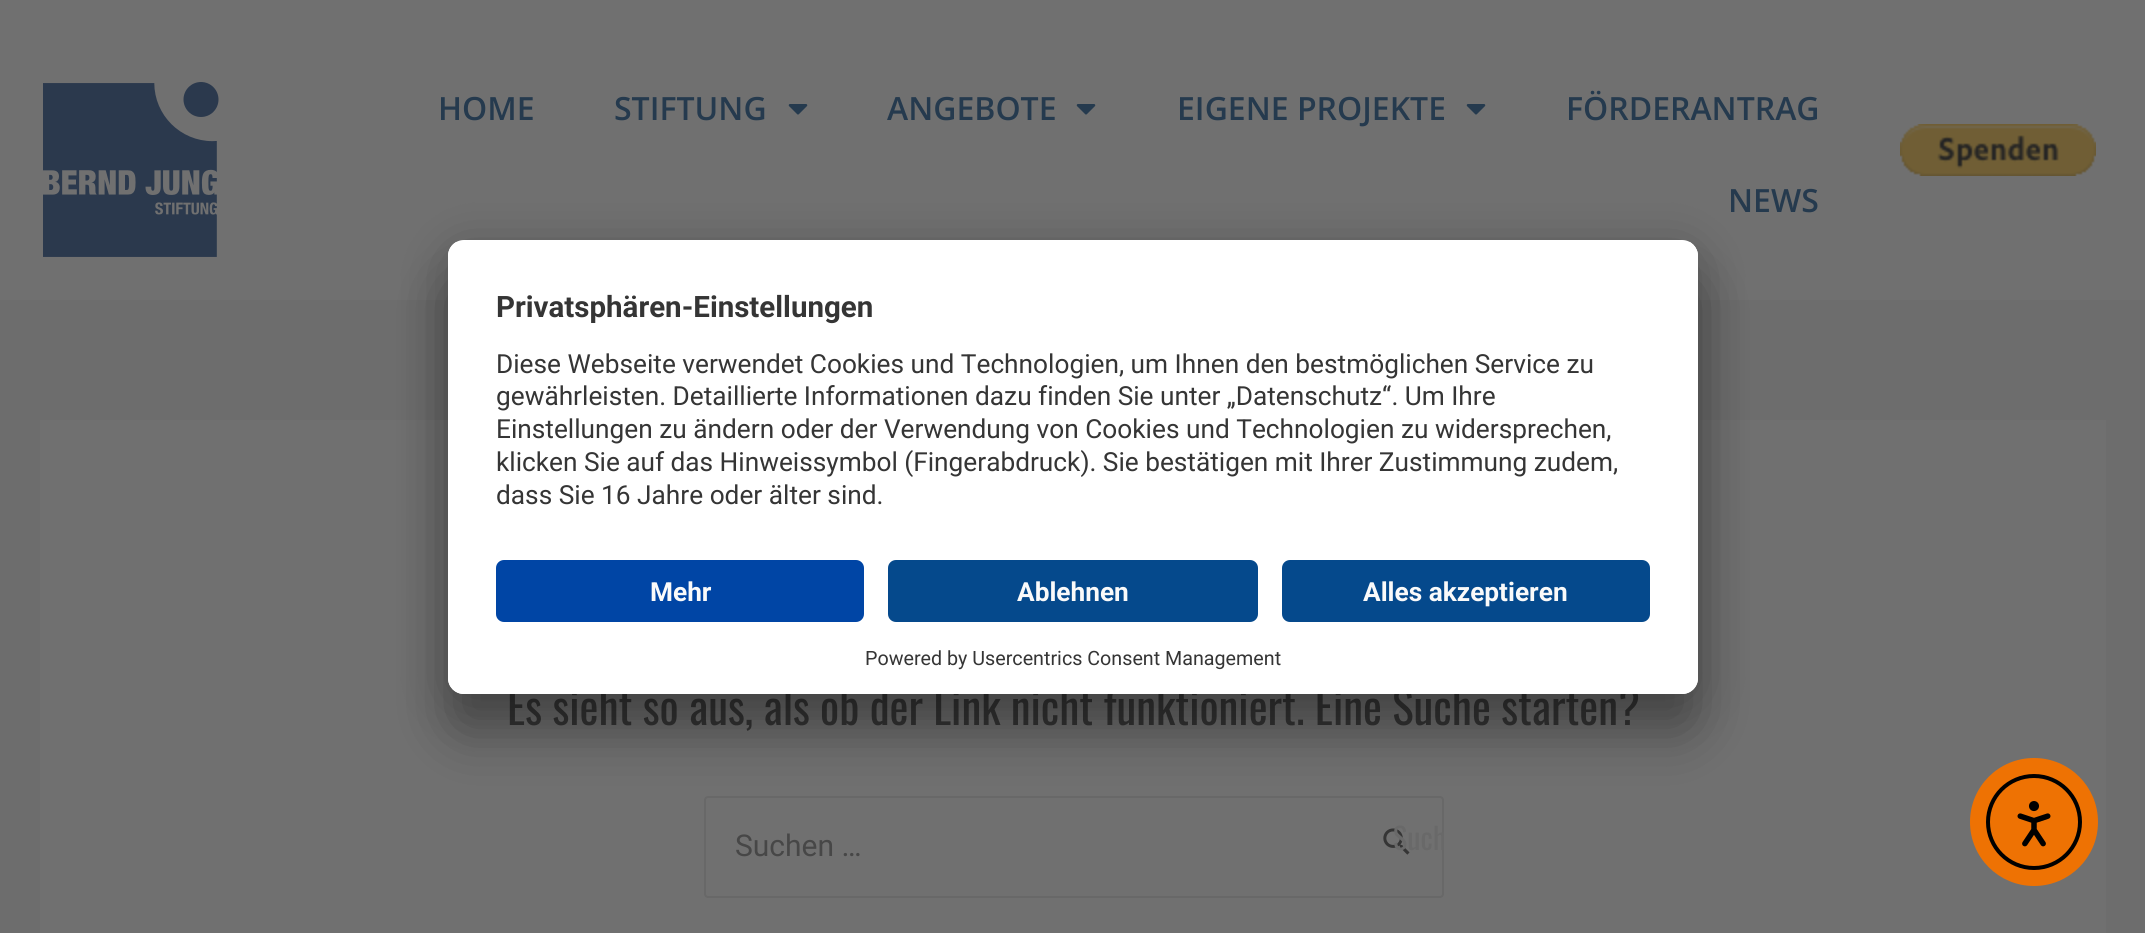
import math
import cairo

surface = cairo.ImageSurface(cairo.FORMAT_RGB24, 2145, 933)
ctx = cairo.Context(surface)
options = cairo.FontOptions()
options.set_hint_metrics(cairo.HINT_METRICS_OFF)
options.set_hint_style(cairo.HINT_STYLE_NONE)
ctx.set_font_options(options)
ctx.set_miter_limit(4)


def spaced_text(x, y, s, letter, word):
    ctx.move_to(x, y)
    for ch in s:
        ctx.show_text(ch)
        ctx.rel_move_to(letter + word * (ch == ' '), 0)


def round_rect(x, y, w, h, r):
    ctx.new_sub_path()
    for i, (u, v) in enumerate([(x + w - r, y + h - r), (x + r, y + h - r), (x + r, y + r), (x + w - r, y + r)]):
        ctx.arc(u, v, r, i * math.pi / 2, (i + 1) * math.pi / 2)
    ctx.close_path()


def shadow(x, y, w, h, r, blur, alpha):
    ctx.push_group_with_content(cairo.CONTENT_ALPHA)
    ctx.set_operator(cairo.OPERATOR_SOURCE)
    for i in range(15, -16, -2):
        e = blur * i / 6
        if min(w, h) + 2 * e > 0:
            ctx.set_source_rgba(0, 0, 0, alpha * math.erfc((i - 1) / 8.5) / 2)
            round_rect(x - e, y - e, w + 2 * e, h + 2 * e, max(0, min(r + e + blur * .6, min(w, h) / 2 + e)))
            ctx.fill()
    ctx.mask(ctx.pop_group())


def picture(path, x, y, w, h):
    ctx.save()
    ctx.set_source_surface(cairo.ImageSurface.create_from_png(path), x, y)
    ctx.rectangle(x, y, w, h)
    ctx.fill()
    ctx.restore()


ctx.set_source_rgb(0.427, 0.427, 0.427)
ctx.paint()
ctx.set_source_rgb(0.439, 0.439, 0.439)
ctx.rectangle(0, 0, 2145, 300)
ctx.fill()
picture("img1.png", 43, 82, 176, 175)
ctx.select_font_face("Open Sans SemiBold")
ctx.set_font_size(32)
ctx.set_source_rgb(0.145, 0.227, 0.306)
ctx.move_to(438, 120)
ctx.show_text("HOME")
ctx.move_to(614, 120)
ctx.show_text("STIFTUNG")
picture("img2.png", 788, 104, 20, 11)
ctx.move_to(887, 120)
ctx.show_text("ANGEBOTE")
picture("img2.png", 1076, 104, 20, 11)
ctx.move_to(1177, 120)
ctx.show_text("EIGENE PROJEKTE")
picture("img2.png", 1466, 104, 20, 11)
ctx.move_to(1566, 120)
ctx.show_text("FÖRDERANTRAG")
ctx.move_to(1728, 212)
ctx.show_text("NEWS")
picture("img3.png", 1900, 124, 196, 52)
ctx.set_source_rgb(0.439, 0.439, 0.439)
ctx.rectangle(40, 420, 2066, 513)
ctx.fill()
ctx.select_font_face("Oswald")
ctx.set_font_size(45)
ctx.set_source_rgb(0.208, 0.208, 0.208)
ctx.move_to(507, 725)
ctx.show_text("Es sieht so aus, als ob der Link nicht funktioniert. Eine Suche starten?")
round_rect(705, 797, 738, 100, 3)
ctx.set_source_rgb(0.408, 0.408, 0.408)
ctx.stroke()
ctx.select_font_face("Roboto")
ctx.set_font_size(30)
ctx.set_source_rgb(0.278, 0.278, 0.278)
ctx.move_to(735, 856)
ctx.show_text("Suchen …")
picture("img4.png", 1383, 828, 27, 27)
ctx.save()
round_rect(1354, 796, 90, 82, 4)
ctx.clip()
ctx.select_font_face("Oswald")
ctx.set_source_rgb(0.412, 0.412, 0.412)
ctx.move_to(1393, 850)
ctx.show_text("Such")
ctx.restore()
ctx.set_source_rgb(0, 0, 0)
shadow(448, 280, 1250, 454, 16, 28, 0.3)
shadow(448, 250, 1250, 454, 16, 26, 0.22)
ctx.set_source_rgb(1, 1, 1)
round_rect(448, 240, 1250, 454, 16)
ctx.fill()
ctx.save()
round_rect(448, 240, 1250, 454, 16)
ctx.clip()
ctx.new_path()
ctx.move_to(464, 240)
ctx.line_to(1682, 240)
ctx.curve_to(1691, 240, 1698, 247, 1698, 256)
ctx.line_to(1698, 544)
ctx.line_to(448, 544)
ctx.line_to(448, 256)
ctx.curve_to(448, 247, 455, 240, 464, 240)
ctx.close_path()
ctx.clip()
ctx.rectangle(448, 242, 1250, 302)
ctx.fill()
ctx.restore()
ctx.select_font_face("Roboto", cairo.FONT_SLANT_NORMAL, cairo.FONT_WEIGHT_BOLD)
ctx.set_font_size(29.5)
ctx.set_source_rgb(0.208, 0.208, 0.208)
ctx.move_to(496, 317)
ctx.show_text("Privatsphären-Einstellungen")
ctx.select_font_face("Roboto")
ctx.set_font_size(26.25)
ctx.move_to(496, 373)
ctx.show_text("Diese Webseite verwendet Cookies und Technologien, um Ihnen den bestmöglichen Service zu")
spaced_text(496, 405, "gewährleisten. Detaillierte Informationen dazu finden Sie unter „Datenschutz“. Um Ihre", 0, -0.1)
ctx.move_to(496, 438)
ctx.show_text("Einstellungen zu ändern oder der Verwendung von Cookies und Technologien zu widersprechen,")
spaced_text(496, 471, "klicken Sie auf das Hinweissymbol (Fingerabdruck). Sie bestätigen mit Ihrer Zustimmung zudem,", 0, -0.1)
ctx.move_to(496, 504)
ctx.show_text("dass Sie 16 Jahre oder älter sind.")
ctx.set_source_rgb(1, 1, 1)
ctx.new_path()
ctx.move_to(448, 544)
ctx.line_to(1698, 544)
ctx.line_to(1698, 678)
ctx.curve_to(1698, 687, 1691, 694, 1682, 694)
ctx.line_to(464, 694)
ctx.curve_to(455, 694, 448, 687, 448, 678)
ctx.close_path()
ctx.fill()
ctx.set_source_rgb(0, 0.271, 0.647)
round_rect(496, 560, 368, 62, 8)
ctx.fill()
ctx.select_font_face("Roboto", cairo.FONT_SLANT_NORMAL, cairo.FONT_WEIGHT_BOLD)
ctx.set_source_rgb(0.98, 0.98, 0.98)
ctx.move_to(650, 601)
ctx.show_text("Mehr")
ctx.set_source_rgb(0.02, 0.286, 0.549)
round_rect(888, 560, 370, 62, 8)
ctx.fill()
ctx.set_source_rgb(0.98, 0.98, 0.98)
ctx.move_to(1017, 601)
ctx.show_text("Ablehnen")
ctx.set_source_rgb(0.02, 0.286, 0.549)
round_rect(1282, 560, 368, 62, 8)
ctx.fill()
ctx.set_source_rgb(0.98, 0.98, 0.98)
ctx.move_to(1363, 601)
ctx.show_text("Alles akzeptieren")
ctx.select_font_face("Roboto")
ctx.set_font_size(19.7)
ctx.set_source_rgb(0.208, 0.208, 0.208)
ctx.move_to(865, 665)
ctx.show_text("Powered by Usercentrics Consent Management")
ctx.set_source_rgb(0.933, 0.447, 0.012)
ctx.new_path()
ctx.arc(2034, 822, 64, 0, 2 * math.pi)
ctx.fill()
ctx.arc(2034, 822, 46, 0, 2 * math.pi)
ctx.set_source_rgb(0, 0, 0)
ctx.set_line_width(4)
ctx.stroke()
picture("img5.png", 2017, 801, 34, 46)
surface.write_to_png("page.png")
